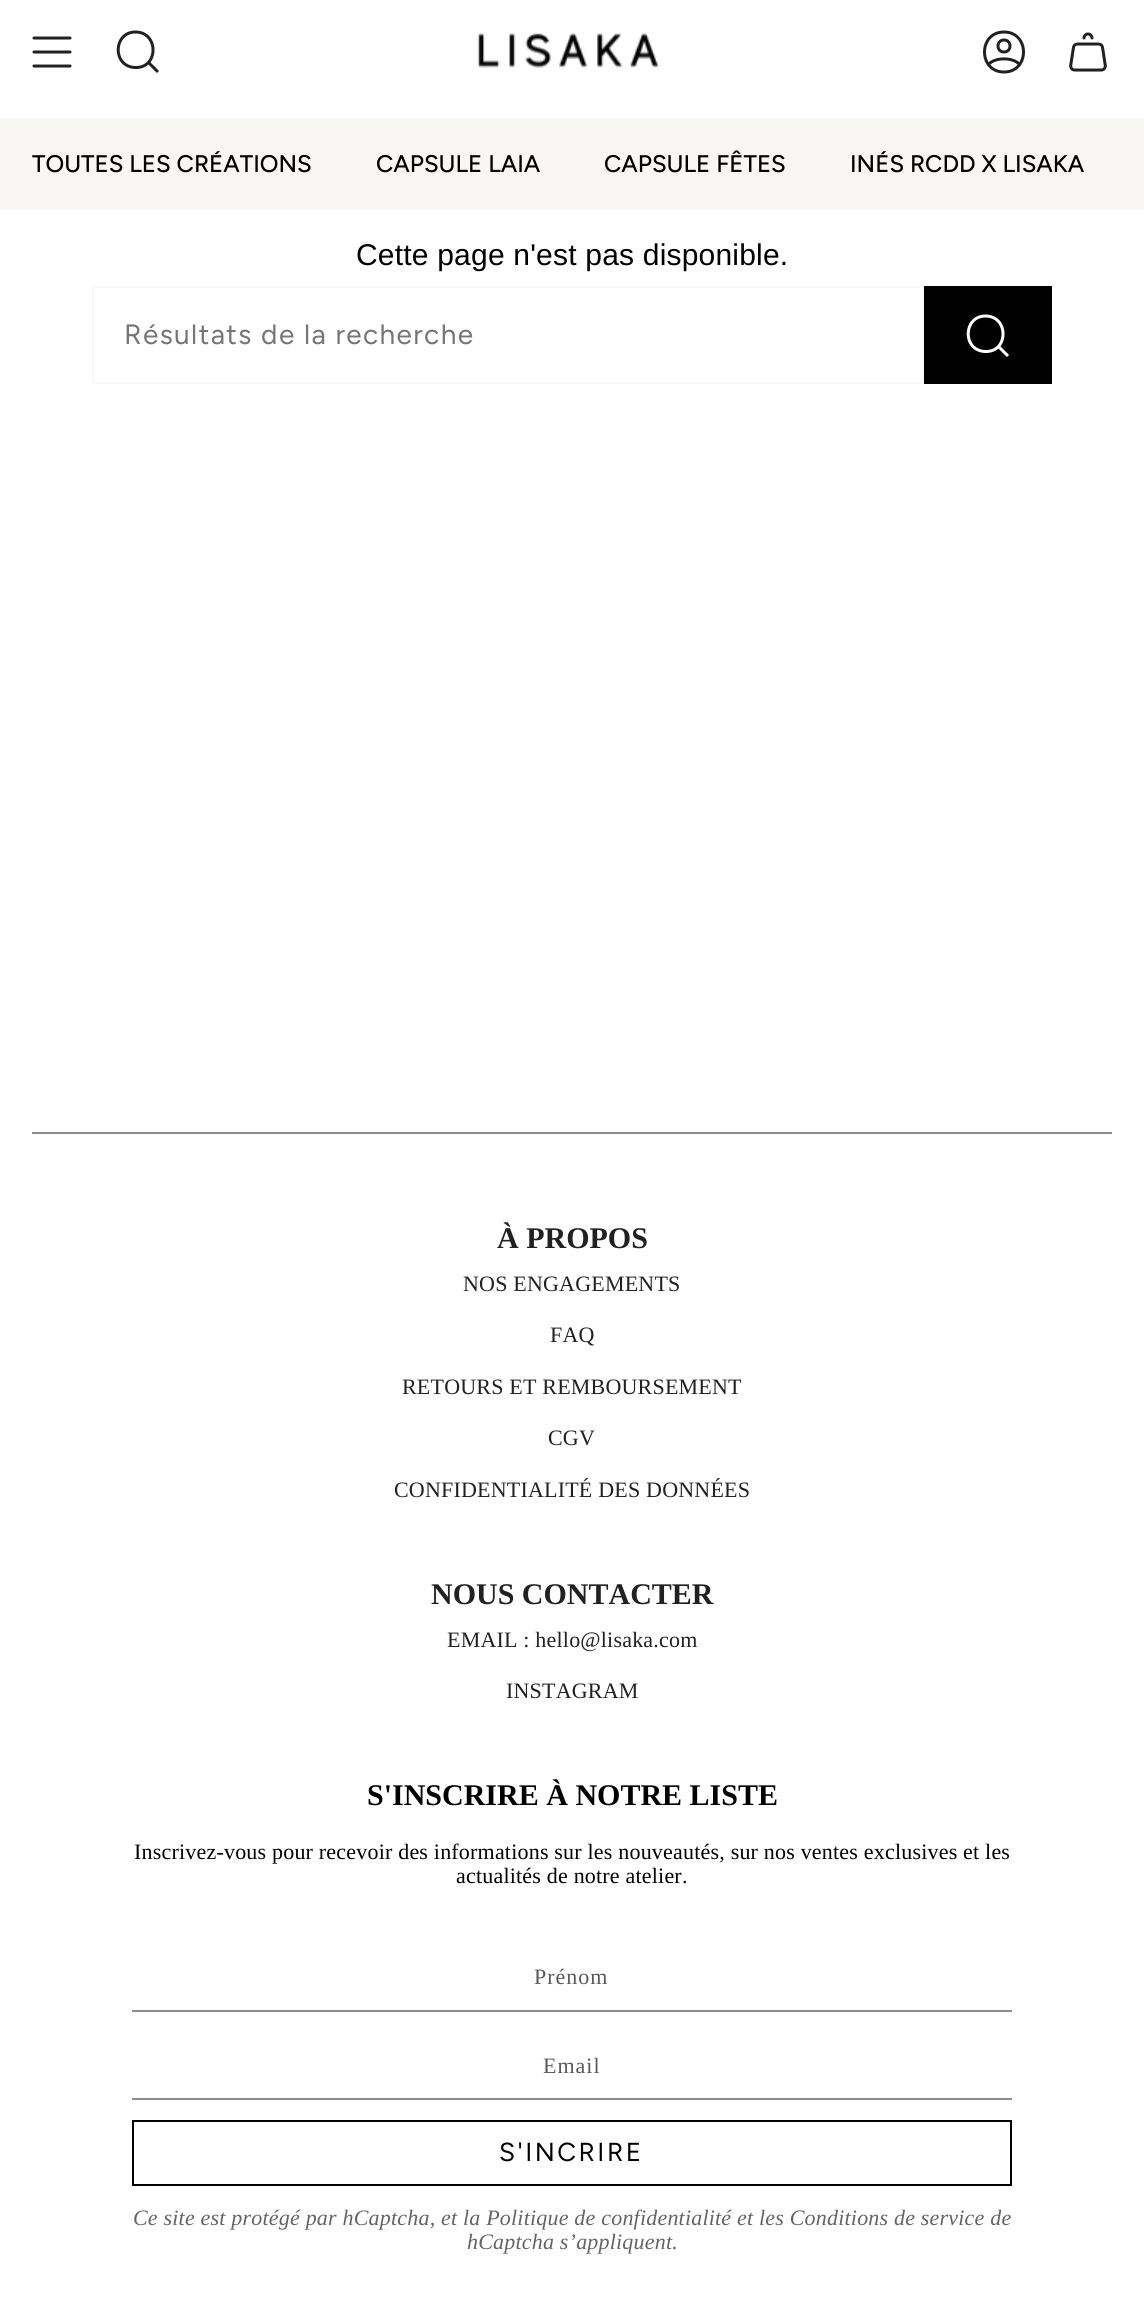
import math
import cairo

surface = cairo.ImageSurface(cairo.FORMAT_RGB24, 1144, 2298)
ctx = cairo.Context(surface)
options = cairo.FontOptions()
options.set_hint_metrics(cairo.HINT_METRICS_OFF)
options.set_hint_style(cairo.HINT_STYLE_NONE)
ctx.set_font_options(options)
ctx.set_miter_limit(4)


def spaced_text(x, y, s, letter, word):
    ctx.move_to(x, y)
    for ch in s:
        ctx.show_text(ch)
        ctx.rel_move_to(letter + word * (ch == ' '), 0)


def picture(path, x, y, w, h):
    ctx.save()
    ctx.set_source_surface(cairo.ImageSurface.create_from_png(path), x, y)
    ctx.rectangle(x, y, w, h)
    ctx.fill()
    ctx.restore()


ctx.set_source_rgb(1, 1, 1)
ctx.paint()
ctx.new_path()
ctx.move_to(34, 38)
ctx.line_to(70, 38)
ctx.move_to(34, 52)
ctx.line_to(70, 52)
ctx.move_to(34, 66)
ctx.line_to(70, 66)
ctx.set_source_rgb(0.129, 0.129, 0.129)
ctx.set_line_width(3)
ctx.set_line_cap(cairo.LINE_CAP_ROUND)
ctx.set_line_join(cairo.LINE_JOIN_ROUND)
ctx.stroke()
ctx.new_path()
ctx.move_to(135.5, 32)
ctx.curve_to(159, 32, 159, 68.5, 135, 67.5)
ctx.curve_to(112, 66.5, 113, 32, 135.5, 32)
ctx.close_path()
ctx.move_to(148, 62)
ctx.line_to(158, 72)
ctx.set_line_cap(cairo.LINE_CAP_BUTT)
ctx.set_line_join(cairo.LINE_JOIN_MITER)
ctx.stroke()
picture("img1.png", 477, 33, 182, 35)
ctx.new_path()
ctx.move_to(1004, 32)
ctx.curve_to(978, 32, 978, 72, 1004, 72)
ctx.curve_to(1030, 72, 1030, 32, 1004, 32)
ctx.close_path()
ctx.move_to(988.5, 64.5)
ctx.curve_to(994.5, 57, 1013.5, 57, 1019.5, 64.5)
ctx.move_to(1004, 52)
ctx.curve_to(1012, 52, 1012, 40, 1004, 40)
ctx.curve_to(996, 40, 996, 52, 1004, 52)
ctx.close_path()
ctx.set_line_cap(cairo.LINE_CAP_ROUND)
ctx.set_line_join(cairo.LINE_JOIN_ROUND)
ctx.stroke()
picture("img2.png", 1069, 32, 38, 40)
ctx.set_source_rgb(0.969, 0.965, 0.957)
ctx.rectangle(0, 118, 1144, 92)
ctx.fill()
ctx.select_font_face("Figtree Medium")
ctx.set_font_size(24)
ctx.set_source_rgb(0, 0, 0)
ctx.move_to(32, 172)
ctx.show_text("TOUTES LES CRÉATIONS")
ctx.move_to(376, 172)
ctx.show_text("CAPSULE LAIA")
ctx.move_to(604, 172)
ctx.show_text("CAPSULE FÊTES")
ctx.move_to(850, 172)
ctx.show_text("INÉS RCDD X LISAKA")
ctx.select_font_face("Liberation Sans")
ctx.set_font_size(30)
spaced_text(356, 265, "Cette page n'est pas disponible.", 0.2, 0)
ctx.rectangle(93, 287, 830, 96)
ctx.set_source_rgb(0.969, 0.976, 0.98)
ctx.set_line_width(2)
ctx.set_line_cap(cairo.LINE_CAP_BUTT)
ctx.set_line_join(cairo.LINE_JOIN_MITER)
ctx.stroke()
ctx.select_font_face("Figtree")
ctx.set_font_size(28)
ctx.set_source_rgb(0.459, 0.459, 0.459)
spaced_text(124, 344, "Résultats de la recherche", 1.4, 0)
ctx.set_source_rgb(0, 0, 0)
ctx.rectangle(924, 286, 128, 98)
ctx.fill()
ctx.new_path()
ctx.move_to(985.5, 316)
ctx.curve_to(1009, 316, 1009, 352.5, 985, 351.5)
ctx.curve_to(962, 350.5, 963, 316, 985.5, 316)
ctx.close_path()
ctx.move_to(998, 346)
ctx.line_to(1008, 356)
ctx.set_source_rgb(1, 1, 1)
ctx.set_line_width(3)
ctx.stroke()
ctx.set_source_rgb(0.549, 0.541, 0.522)
ctx.rectangle(32, 1132, 1080, 2)
ctx.fill()
ctx.select_font_face("Liberation Serif", cairo.FONT_SLANT_NORMAL, cairo.FONT_WEIGHT_BOLD)
ctx.set_font_size(30)
ctx.set_source_rgb(0.129, 0.129, 0.129)
ctx.move_to(497, 1248)
ctx.show_text("À PROPOS")
ctx.select_font_face("Liberation Serif")
ctx.set_font_size(22)
spaced_text(463, 1291, "NOS ENGAGEMENTS", 0.2, 0)
spaced_text(550, 1342, "FAQ", 0.2, 0)
spaced_text(402, 1394, "RETOURS ET REMBOURSEMENT", 0.2, 0)
spaced_text(548, 1445, "CGV", 0.2, 0)
spaced_text(394, 1497, "CONFIDENTIALITÉ DES DONNÉES", 0.2, 0)
ctx.select_font_face("Liberation Serif", cairo.FONT_SLANT_NORMAL, cairo.FONT_WEIGHT_BOLD)
ctx.set_font_size(30)
ctx.move_to(431, 1604)
ctx.show_text("NOUS CONTACTER")
ctx.select_font_face("Liberation Serif")
ctx.set_font_size(22)
spaced_text(447, 1647, "EMAIL : hello@lisaka.com", 0.2, 0)
spaced_text(506, 1698, "INSTAGRAM", 0.2, 0)
ctx.select_font_face("Liberation Serif", cairo.FONT_SLANT_NORMAL, cairo.FONT_WEIGHT_BOLD)
ctx.set_font_size(30)
ctx.set_source_rgb(0, 0, 0)
ctx.move_to(367, 1805)
ctx.show_text("S'INSCRIRE À NOTRE LISTE")
ctx.select_font_face("Liberation Serif")
ctx.set_font_size(22)
spaced_text(134, 1859, "Inscrivez-vous pour recevoir des informations sur les nouveautés, sur nos ventes exclusives et les", 0.2, 0)
spaced_text(456, 1883, "actualités de notre atelier.", 0.2, 0)
ctx.set_source_rgb(0.549, 0.541, 0.522)
ctx.rectangle(132, 2010, 880, 2)
ctx.fill()
ctx.set_source_rgb(0.349, 0.349, 0.349)
spaced_text(534, 1984, "Prénom", 1, 0)
ctx.set_source_rgb(0.549, 0.541, 0.522)
ctx.rectangle(132, 2098, 880, 2)
ctx.fill()
ctx.set_source_rgb(0.349, 0.349, 0.349)
spaced_text(543, 2073, "Email", 1, 0)
ctx.rectangle(133, 2121, 878, 64)
ctx.set_source_rgb(0, 0, 0)
ctx.set_line_width(2)
ctx.stroke()
ctx.select_font_face("Figtree")
ctx.set_font_size(26)
spaced_text(499, 2161, "S'INCRIRE", 2.5, 0)
ctx.select_font_face("Liberation Serif", cairo.FONT_SLANT_ITALIC)
ctx.set_font_size(22)
ctx.set_source_rgb(0.392, 0.392, 0.392)
spaced_text(133, 2225, "Ce site est protégé par hCaptcha, et la Politique de confidentialité et les Conditions de service de", 0.2, 0)
spaced_text(467, 2249, "hCaptcha s’appliquent.", 0.2, 0)
surface.write_to_png("page.png")
